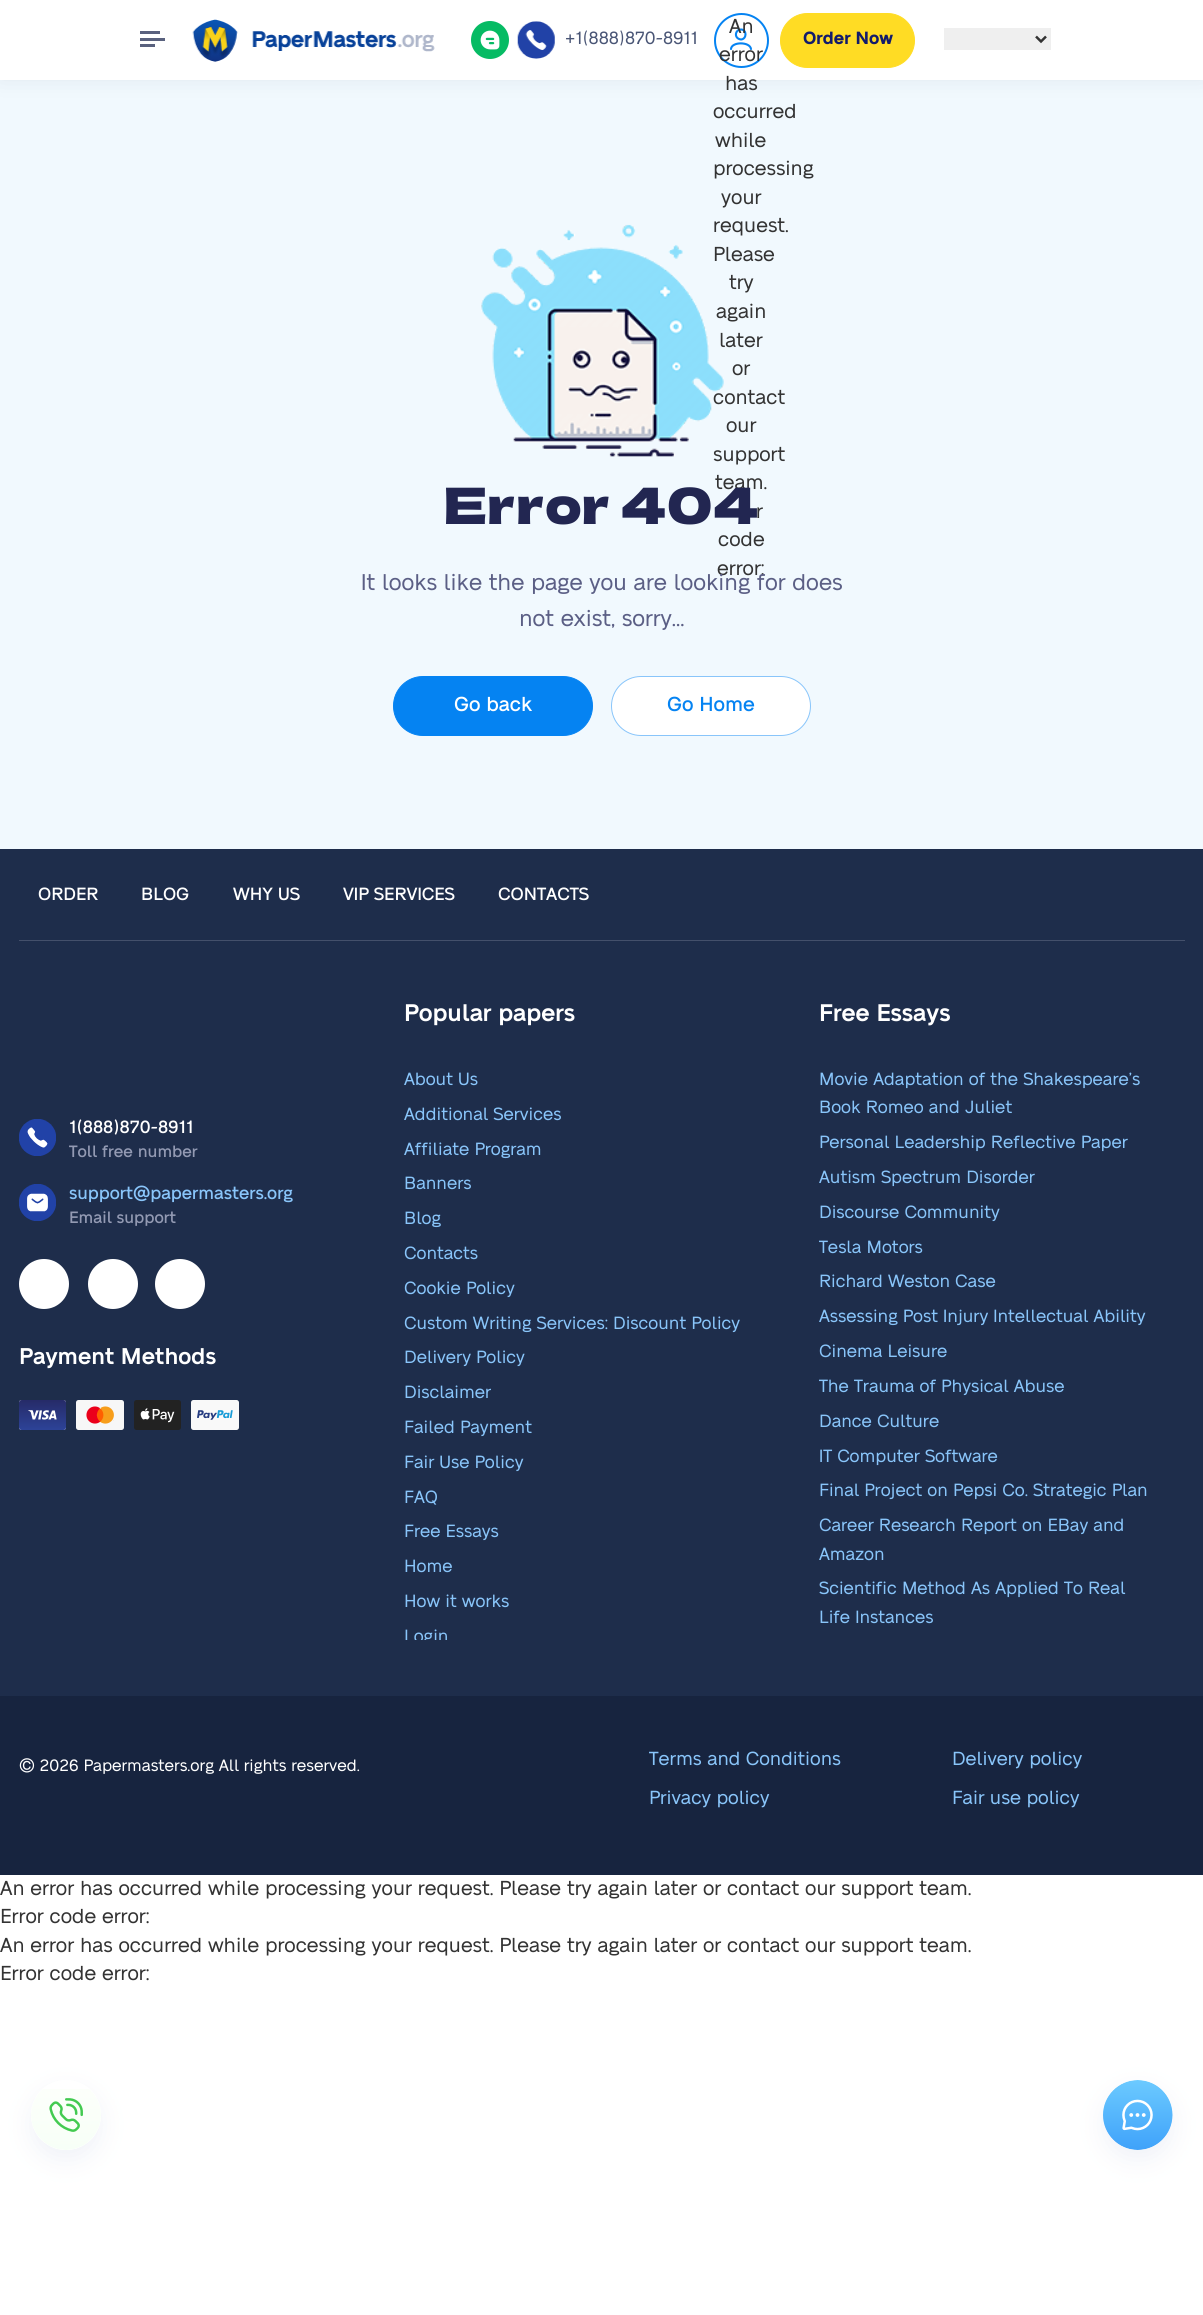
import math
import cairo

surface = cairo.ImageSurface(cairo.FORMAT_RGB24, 1203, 2315)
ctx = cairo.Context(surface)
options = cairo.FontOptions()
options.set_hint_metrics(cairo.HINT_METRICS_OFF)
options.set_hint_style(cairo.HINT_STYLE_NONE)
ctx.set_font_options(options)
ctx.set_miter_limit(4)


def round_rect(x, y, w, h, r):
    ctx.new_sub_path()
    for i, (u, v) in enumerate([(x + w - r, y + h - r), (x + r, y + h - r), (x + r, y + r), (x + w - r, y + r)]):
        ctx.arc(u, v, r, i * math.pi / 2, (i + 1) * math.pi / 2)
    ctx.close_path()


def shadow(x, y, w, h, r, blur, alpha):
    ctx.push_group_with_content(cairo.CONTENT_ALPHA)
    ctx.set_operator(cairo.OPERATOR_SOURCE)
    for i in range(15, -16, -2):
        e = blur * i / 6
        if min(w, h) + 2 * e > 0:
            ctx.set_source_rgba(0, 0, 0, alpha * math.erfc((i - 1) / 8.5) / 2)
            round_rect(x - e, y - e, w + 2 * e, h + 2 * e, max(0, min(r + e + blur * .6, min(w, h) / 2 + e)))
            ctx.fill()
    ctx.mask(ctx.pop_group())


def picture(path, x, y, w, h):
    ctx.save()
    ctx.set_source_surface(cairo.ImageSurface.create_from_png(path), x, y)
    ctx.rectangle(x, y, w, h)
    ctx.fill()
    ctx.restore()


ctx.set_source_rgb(1, 1, 1)
ctx.paint()
ctx.set_source_rgb(0.945, 0.973, 0.996)
ctx.rectangle(0, 80, 1203, 769)
ctx.fill()
ctx.set_source_rgb(0.298, 0.329, 0.447)
shadow(0, -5, 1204, 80, 0, 12.5, 0.15)
ctx.set_source_rgb(1, 1, 1)
ctx.rectangle(0, 0, 1203, 80)
ctx.fill()
ctx.set_source_rgb(0.349, 0.38, 0.494)
ctx.rectangle(140, 31, 20, 3)
ctx.fill()
ctx.rectangle(140, 38, 25, 3)
ctx.fill()
ctx.rectangle(140, 44, 15, 3)
ctx.fill()
picture("img1.png", 192, 19, 243, 43)
picture("img2.png", 471, 21, 38, 38)
picture("img3.png", 517, 21, 38, 38)
ctx.select_font_face("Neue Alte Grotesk")
ctx.set_font_size(17.5)
ctx.set_source_rgb(0.286, 0.333, 0.459)
ctx.move_to(565, 44)
ctx.show_text("+1(888)870-8911")
ctx.new_path()
ctx.arc(741.5, 40.5, 26.5, 0, 2 * math.pi)
ctx.set_source_rgb(0.02, 0.514, 0.949)
ctx.stroke()
ctx.new_path()
ctx.move_to(741, 39.5)
ctx.curve_to(733.5, 38.5, 735, 29.5, 741, 29.5)
ctx.curve_to(747, 29.5, 747, 39, 741, 39.5)
ctx.close_path()
ctx.move_to(751, 49)
ctx.curve_to(750, 41.5, 731.5, 41.5, 731, 49)
ctx.set_line_width(2.1)
ctx.set_line_cap(cairo.LINE_CAP_ROUND)
ctx.set_line_join(cairo.LINE_JOIN_ROUND)
ctx.stroke()
ctx.set_font_size(20)
ctx.set_source_rgb(0.2, 0.2, 0.2)
ctx.move_to(729, 33)
ctx.show_text("An")
ctx.move_to(719, 61)
ctx.show_text("error")
ctx.move_to(725, 90)
ctx.show_text("has")
ctx.move_to(713, 118)
ctx.show_text("occurred")
ctx.move_to(715, 147)
ctx.show_text("while")
ctx.move_to(713, 175)
ctx.show_text("processing")
ctx.move_to(721, 204)
ctx.show_text("your")
picture("img4.png", 481, 224, 243, 233)
ctx.move_to(713, 232)
ctx.show_text("request.")
ctx.move_to(713, 261)
ctx.show_text("Please")
ctx.move_to(729, 289)
ctx.show_text("try")
ctx.move_to(716, 318)
ctx.show_text("again")
ctx.move_to(719, 347)
ctx.show_text("later")
ctx.move_to(732, 375)
ctx.show_text("or")
ctx.move_to(713, 404)
ctx.show_text("contact")
ctx.move_to(726, 432)
ctx.show_text("our")
ctx.move_to(713, 461)
ctx.show_text("support")
ctx.move_to(715, 489)
ctx.show_text("team.")
ctx.select_font_face("Dela Gothic One")
ctx.set_font_size(50)
ctx.set_source_rgb(0.133, 0.149, 0.318)
ctx.move_to(444, 524)
ctx.show_text("Error 404")
ctx.select_font_face("Neue Alte Grotesk")
ctx.set_font_size(20)
ctx.set_source_rgb(0.2, 0.2, 0.2)
ctx.move_to(756, 518)
ctx.show_text("r")
ctx.move_to(718, 546)
ctx.show_text("code")
ctx.move_to(717, 575)
ctx.show_text("error:")
ctx.set_source_rgb(1, 0.863, 0.141)
round_rect(780.5, 13.5, 134, 54, 27)
ctx.fill_preserve()
ctx.set_line_width(1)
ctx.set_line_cap(cairo.LINE_CAP_BUTT)
ctx.set_line_join(cairo.LINE_JOIN_MITER)
ctx.stroke()
ctx.select_font_face("Neue Alte Grotesk", cairo.FONT_SLANT_NORMAL, cairo.FONT_WEIGHT_BOLD)
ctx.set_font_size(17.5)
ctx.set_source_rgb(0.071, 0.106, 0.42)
ctx.move_to(803, 44)
ctx.show_text("Order Now")
ctx.set_source_rgb(0.937, 0.937, 0.937)
ctx.rectangle(944, 28, 107, 22)
ctx.fill()
ctx.new_path()
ctx.move_to(1036, 36.5)
ctx.line_to(1041, 41.5)
ctx.line_to(1046, 36.5)
ctx.set_source_rgb(0.2, 0.2, 0.2)
ctx.set_line_width(2.5)
ctx.stroke()
ctx.select_font_face("Neue Alte Grotesk")
ctx.set_font_size(22.5)
ctx.set_source_rgb(0.357, 0.373, 0.522)
ctx.move_to(361, 590)
ctx.show_text("It looks like the page you are looking for does")
ctx.move_to(519, 626)
ctx.show_text("not exist, sorry...")
ctx.set_source_rgb(0.02, 0.514, 0.949)
round_rect(393.5, 676.5, 199, 59, 29.5)
ctx.fill_preserve()
ctx.set_line_width(1)
ctx.stroke()
ctx.select_font_face("Neue Alte Grotesk Medium")
ctx.set_font_size(20)
ctx.set_source_rgb(1, 1, 1)
ctx.move_to(454, 711)
ctx.show_text("Go back")
round_rect(611.5, 676.5, 199, 59, 29.5)
ctx.fill_preserve()
ctx.set_source_rgb(0.537, 0.773, 0.98)
ctx.stroke()
ctx.set_source_rgb(0.02, 0.514, 0.949)
ctx.move_to(667, 711)
ctx.show_text("Go Home")
ctx.set_source_rgb(0.118, 0.176, 0.294)
ctx.rectangle(0, 849, 1203, 847)
ctx.fill()
ctx.set_source_rgb(0.267, 0.314, 0.42)
ctx.rectangle(19, 940, 1166, 1)
ctx.fill()
ctx.set_font_size(17.5)
ctx.set_source_rgb(1, 1, 1)
ctx.move_to(38, 900)
ctx.show_text("ORDER")
ctx.move_to(141, 900)
ctx.show_text("BLOG")
ctx.move_to(233, 900)
ctx.show_text("WHY US")
ctx.move_to(343, 900)
ctx.show_text("VIP SERVICES")
ctx.move_to(498, 900)
ctx.show_text("CONTACTS")
picture("img5.png", 19, 1119, 37, 37)
ctx.move_to(69, 1133)
ctx.show_text("1(888)870-8911")
ctx.set_font_size(16.25)
ctx.set_source_rgb(0.576, 0.604, 0.702)
ctx.move_to(69, 1157)
ctx.show_text("Toll free number")
picture("img6.png", 19, 1184, 37, 37)
ctx.set_font_size(17.5)
ctx.set_source_rgb(0.537, 0.773, 0.98)
ctx.move_to(69, 1199)
ctx.show_text("support@papermasters.org")
ctx.set_font_size(16.25)
ctx.set_source_rgb(0.576, 0.604, 0.702)
ctx.move_to(69, 1223)
ctx.show_text("Email support")
ctx.set_source_rgb(1, 1, 1)
ctx.new_path()
ctx.arc(44, 1284, 25, 0, 2 * math.pi)
ctx.fill()
ctx.arc(113, 1284, 25, 0, 2 * math.pi)
ctx.fill()
ctx.arc(180, 1284, 25, 0, 2 * math.pi)
ctx.fill()
ctx.select_font_face("Neue Alte Grotesk SemiBold")
ctx.set_font_size(22.5)
ctx.move_to(19, 1364)
ctx.show_text("Payment Methods")
picture("img7.png", 19, 1400, 47, 30)
picture("img8.png", 76, 1400, 48, 30)
picture("img9.png", 134, 1400, 47, 30)
picture("img10.png", 191, 1400, 48, 30)
ctx.set_font_size(23.75)
ctx.move_to(404, 1021)
ctx.show_text("Popular papers")
ctx.select_font_face("Neue Alte Grotesk")
ctx.set_font_size(17.5)
ctx.set_source_rgb(0.537, 0.773, 0.98)
ctx.move_to(404, 1085)
ctx.show_text("About Us")
ctx.move_to(404, 1120)
ctx.show_text("Additional Services")
ctx.move_to(404, 1155)
ctx.show_text("Affiliate Program")
ctx.move_to(404, 1189)
ctx.show_text("Banners")
ctx.move_to(404, 1224)
ctx.show_text("Blog")
ctx.move_to(404, 1259)
ctx.show_text("Contacts")
ctx.move_to(404, 1294)
ctx.show_text("Cookie Policy")
ctx.move_to(404, 1329)
ctx.show_text("Custom Writing Services: Discount Policy")
ctx.move_to(404, 1363)
ctx.show_text("Delivery Policy")
ctx.move_to(404, 1398)
ctx.show_text("Disclaimer")
ctx.move_to(404, 1433)
ctx.show_text("Failed Payment")
ctx.move_to(404, 1468)
ctx.show_text("Fair Use Policy")
ctx.move_to(404, 1503)
ctx.show_text("FAQ")
ctx.move_to(404, 1537)
ctx.show_text("Free Essays")
ctx.move_to(404, 1572)
ctx.show_text("Home")
ctx.move_to(404, 1607)
ctx.show_text("How it works")
ctx.save()
ctx.rectangle(404, 1065, 385, 575)
ctx.clip()
ctx.move_to(404, 1642)
ctx.show_text("Login")
ctx.restore()
ctx.select_font_face("Neue Alte Grotesk SemiBold")
ctx.set_font_size(23.75)
ctx.set_source_rgb(1, 1, 1)
ctx.move_to(819, 1021)
ctx.show_text("Free Essays")
ctx.select_font_face("Neue Alte Grotesk")
ctx.set_font_size(17.5)
ctx.set_source_rgb(0.537, 0.773, 0.98)
ctx.move_to(819, 1085)
ctx.show_text("Movie Adaptation of the Shakespeare’s")
ctx.move_to(819, 1113)
ctx.show_text("Book Romeo and Juliet")
ctx.move_to(819, 1148)
ctx.show_text("Personal Leadership Reflective Paper")
ctx.move_to(819, 1183)
ctx.show_text("Autism Spectrum Disorder")
ctx.move_to(819, 1218)
ctx.show_text("Discourse Community")
ctx.move_to(819, 1253)
ctx.show_text("Tesla Motors")
ctx.move_to(819, 1287)
ctx.show_text("Richard Weston Case")
ctx.move_to(819, 1322)
ctx.show_text("Assessing Post Injury Intellectual Ability")
ctx.move_to(819, 1357)
ctx.show_text("Cinema Leisure")
ctx.move_to(819, 1392)
ctx.show_text("The Trauma of Physical Abuse")
ctx.move_to(819, 1427)
ctx.show_text("Dance Culture")
ctx.move_to(819, 1462)
ctx.show_text("IT Computer Software")
ctx.move_to(819, 1496)
ctx.show_text("Final Project on Pepsi Co. Strategic Plan")
ctx.move_to(819, 1531)
ctx.show_text("Career Research Report on EBay and")
ctx.move_to(819, 1560)
ctx.show_text("Amazon")
ctx.move_to(819, 1594)
ctx.show_text("Scientific Method As Applied To Real")
ctx.move_to(819, 1623)
ctx.show_text("Life Instances")
ctx.set_source_rgb(0.09, 0.141, 0.247)
ctx.rectangle(0, 1696, 1203, 179)
ctx.fill()
ctx.set_font_size(16.25)
ctx.set_source_rgb(1, 1, 1)
ctx.move_to(19, 1771)
ctx.show_text("© 2026 Papermasters.org All rights reserved.")
ctx.set_font_size(18.75)
ctx.set_source_rgb(0.537, 0.773, 0.98)
ctx.move_to(649, 1765)
ctx.show_text("Terms and Conditions")
ctx.move_to(649, 1804)
ctx.show_text("Privacy policy")
ctx.move_to(952, 1765)
ctx.show_text("Delivery policy")
ctx.move_to(952, 1804)
ctx.show_text("Fair use policy")
ctx.set_font_size(20)
ctx.set_source_rgb(0.2, 0.2, 0.2)
ctx.move_to(0, 1895)
ctx.show_text("An error has occurred while processing your request. Please try again later or contact our support team.")
ctx.move_to(0, 1923)
ctx.show_text("Error code error:")
ctx.move_to(0, 1952)
ctx.show_text("An error has occurred while processing your request. Please try again later or contact our support team.")
ctx.move_to(0, 1980)
ctx.show_text("Error code error:")
ctx.save()
ctx.set_fill_rule(cairo.FILL_RULE_EVEN_ODD)
ctx.new_path()
ctx.move_to(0, 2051)
ctx.line_to(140, 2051)
ctx.line_to(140, 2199)
ctx.line_to(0, 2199)
ctx.close_path()
ctx.move_to(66, 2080)
ctx.curve_to(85.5, 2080, 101, 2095.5, 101, 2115)
ctx.curve_to(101, 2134.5, 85.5, 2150, 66, 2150)
ctx.curve_to(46.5, 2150, 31, 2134.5, 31, 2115)
ctx.curve_to(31, 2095.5, 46.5, 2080, 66, 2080)
ctx.close_path()
ctx.clip()
ctx.set_source_rgb(0.443, 0.506, 0.737)
shadow(31, 2090, 70, 70, 35, 12.5, 0.1)
ctx.restore()
picture("img11.png", 31, 2089, 70, 61)
ctx.set_source_rgb(0.443, 0.506, 0.737)
shadow(1103, 2090, 70, 70, 35, 12.5, 0.1)
picture("img12.png", 1103, 2080, 70, 70)
surface.write_to_png("page.png")
